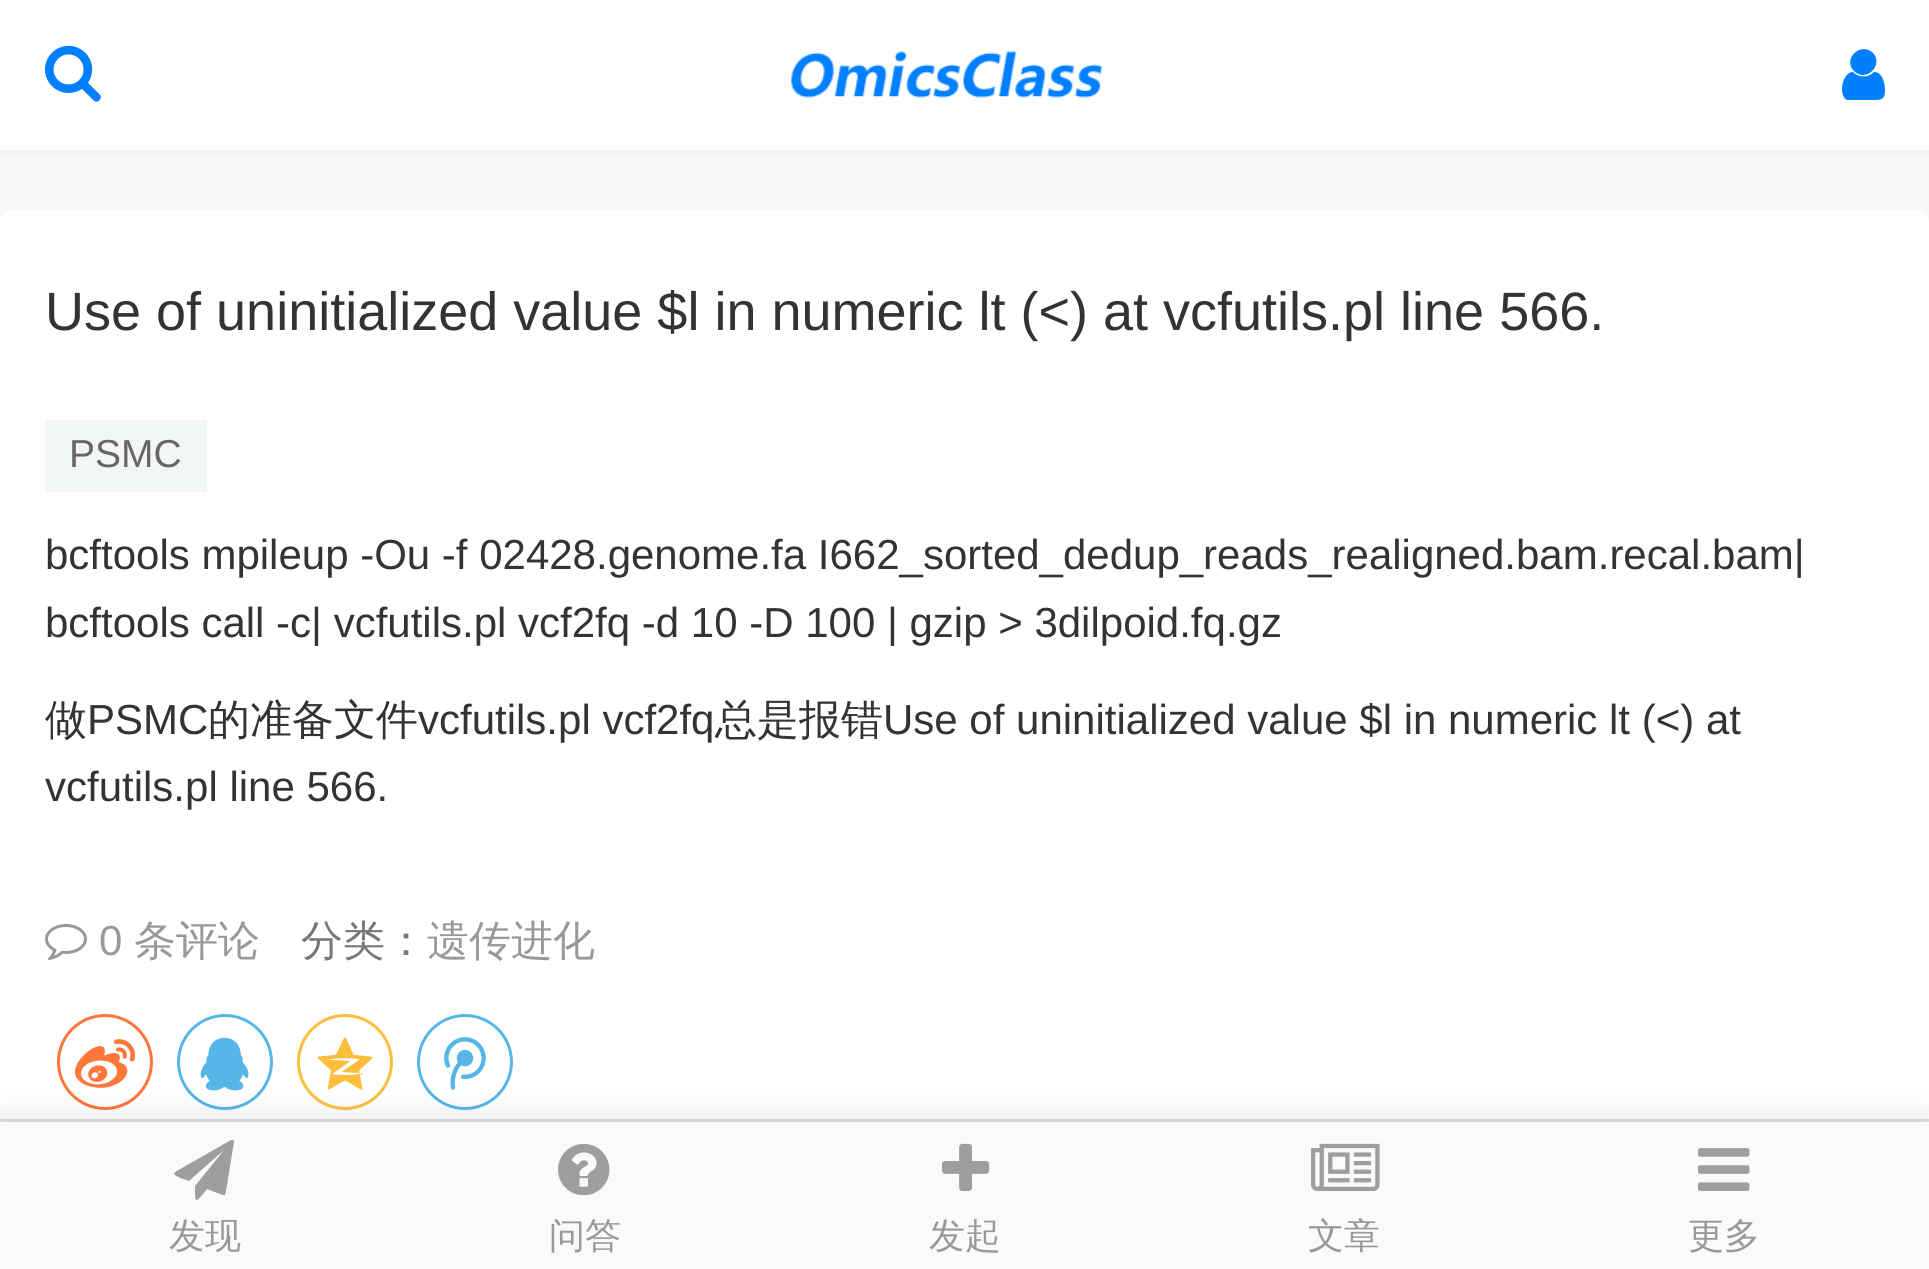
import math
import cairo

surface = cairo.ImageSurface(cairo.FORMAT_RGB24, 1929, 1269)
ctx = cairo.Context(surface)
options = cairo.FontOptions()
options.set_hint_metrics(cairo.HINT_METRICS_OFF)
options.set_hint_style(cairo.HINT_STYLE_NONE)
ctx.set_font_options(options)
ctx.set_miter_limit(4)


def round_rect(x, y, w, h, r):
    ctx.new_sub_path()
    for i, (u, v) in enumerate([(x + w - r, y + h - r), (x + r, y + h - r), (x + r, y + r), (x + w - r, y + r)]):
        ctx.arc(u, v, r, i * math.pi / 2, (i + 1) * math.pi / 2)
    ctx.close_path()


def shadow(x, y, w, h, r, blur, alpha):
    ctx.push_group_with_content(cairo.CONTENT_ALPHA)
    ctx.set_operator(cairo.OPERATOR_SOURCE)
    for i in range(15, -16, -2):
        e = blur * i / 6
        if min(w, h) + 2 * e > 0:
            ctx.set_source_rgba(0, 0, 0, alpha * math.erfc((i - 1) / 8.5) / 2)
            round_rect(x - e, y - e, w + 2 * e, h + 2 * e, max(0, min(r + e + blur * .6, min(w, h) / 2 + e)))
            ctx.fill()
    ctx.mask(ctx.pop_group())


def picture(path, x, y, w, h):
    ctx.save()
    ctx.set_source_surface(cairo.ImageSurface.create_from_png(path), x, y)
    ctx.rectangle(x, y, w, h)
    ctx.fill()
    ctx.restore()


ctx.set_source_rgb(0.965, 0.965, 0.965)
ctx.paint()
ctx.set_source_rgb(1, 1, 1)
round_rect(0, 210, 1929, 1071, 12)
ctx.fill()
ctx.select_font_face("Liberation Sans")
ctx.set_font_size(54)
ctx.set_source_rgb(0.2, 0.2, 0.2)
ctx.move_to(45, 330)
ctx.show_text("Use of uninitialized value $l in numeric lt (<) at vcfutils.pl line 566.")
ctx.set_source_rgb(0.953, 0.965, 0.953)
ctx.rectangle(45, 420, 162, 72)
ctx.fill()
ctx.set_font_size(39)
ctx.set_source_rgb(0.4, 0.4, 0.4)
ctx.move_to(69, 467)
ctx.show_text("PSMC")
ctx.set_font_size(42)
ctx.set_source_rgb(0.2, 0.2, 0.2)
ctx.move_to(45, 569)
ctx.show_text("bcftools mpileup -Ou -f 02428.genome.fa I662_sorted_dedup_reads_realigned.bam.recal.bam|")
ctx.move_to(45, 637)
ctx.show_text("bcftools call -c| vcfutils.pl vcf2fq -d 10 -D 100 | gzip > 3dilpoid.fq.gz")
ctx.select_font_face("WenQuanYi Zen Hei Medium")
ctx.move_to(45, 734)
ctx.show_text("做")
ctx.select_font_face("Liberation Sans")
ctx.move_to(87, 734)
ctx.show_text("PSMC")
ctx.select_font_face("WenQuanYi Zen Hei Medium")
ctx.move_to(208, 734)
ctx.show_text("的准备文件")
ctx.select_font_face("Liberation Sans")
ctx.move_to(418, 734)
ctx.show_text("vcfutils.pl vcf2fq")
ctx.select_font_face("WenQuanYi Zen Hei Medium")
ctx.move_to(715, 734)
ctx.show_text("总是报错")
ctx.select_font_face("Liberation Sans")
ctx.move_to(883, 734)
ctx.show_text("Use of uninitialized value $l in numeric lt (<) at")
ctx.move_to(45, 801)
ctx.show_text("vcfutils.pl line 566.")
picture("img1.png", 45, 924, 42, 36)
ctx.set_source_rgb(0.6, 0.6, 0.6)
ctx.move_to(99, 955)
ctx.show_text("0")
ctx.select_font_face("WenQuanYi Zen Hei Medium")
ctx.move_to(134, 955)
ctx.show_text("条评论")
ctx.set_source_rgb(0.467, 0.467, 0.467)
ctx.move_to(301, 955)
ctx.show_text("分类：")
ctx.set_source_rgb(0.6, 0.6, 0.6)
ctx.move_to(427, 955)
ctx.show_text("遗传进化")
ctx.new_path()
ctx.arc(105, 1062, 46.5, 0, 2 * math.pi)
ctx.set_source_rgb(1, 0.463, 0.231)
ctx.set_line_width(3)
ctx.stroke()
picture("img2.png", 75, 1039, 60, 49)
ctx.arc(225, 1062, 46.5, 0, 2 * math.pi)
ctx.set_source_rgb(0.337, 0.714, 0.906)
ctx.stroke()
picture("img3.png", 200, 1037, 49, 54)
ctx.arc(345, 1062, 46.5, 0, 2 * math.pi)
ctx.set_source_rgb(0.992, 0.745, 0.239)
ctx.stroke()
picture("img4.png", 317, 1037, 56, 53)
ctx.arc(465, 1062, 46.5, 0, 2 * math.pi)
ctx.set_source_rgb(0.337, 0.714, 0.906)
ctx.stroke()
picture("img5.png", 444, 1037, 42, 53)
ctx.set_source_rgb(1, 1, 1)
ctx.rectangle(0, 0, 1929, 150)
ctx.fill()
ctx.set_source_rgb(0.945, 0.945, 0.945)
ctx.rectangle(0, 150, 1929, 3)
ctx.fill()
picture("img6.png", 45, 45, 56, 57)
picture("img7.png", 791, 51, 312, 47)
ctx.set_source_rgb(0, 0.498, 1)
ctx.new_path()
ctx.move_to(1885, 91)
ctx.curve_to(1885, 100, 1880, 100, 1873, 100)
ctx.line_to(1847, 100)
ctx.curve_to(1838, 96, 1842, 72, 1853, 72)
ctx.curve_to(1859, 78, 1868, 78, 1874, 72)
ctx.curve_to(1883, 72, 1885, 84, 1885, 91)
ctx.close_path()
ctx.move_to(1873, 53)
ctx.curve_to(1884, 65, 1866, 83, 1854, 71)
ctx.curve_to(1842, 59, 1861, 41, 1873, 53)
ctx.close_path()
ctx.fill()
ctx.set_source_rgb(0, 0, 0)
shadow(0, 1116, 1929, 147, 0, 15, 0.1)
ctx.set_source_rgba(0, 0, 0, 0.1)
ctx.rectangle(0, 1119, 1929, 3)
ctx.fill()
ctx.set_source_rgb(0.98, 0.98, 0.98)
ctx.rectangle(0, 1122, 1929, 147)
ctx.fill()
ctx.set_source_rgb(0.62, 0.62, 0.62)
ctx.new_path()
ctx.move_to(233, 1140)
ctx.curve_to(234, 1140, 234, 1141, 234, 1142)
ctx.line_to(227, 1185)
ctx.curve_to(225, 1194, 227, 1197, 220, 1194)
ctx.line_to(207, 1189)
ctx.curve_to(195, 1204, 195, 1204, 195, 1186)
ctx.line_to(224, 1150)
ctx.line_to(189, 1181)
ctx.line_to(180, 1178)
ctx.curve_to(179, 1177, 172, 1175, 175, 1172)
ctx.line_to(231, 1140)
ctx.close_path()
ctx.fill()
ctx.set_font_size(36)
ctx.set_source_rgb(0.6, 0.6, 0.6)
ctx.move_to(169, 1248)
ctx.show_text("发现")
picture("img8.png", 558, 1143, 52, 53)
ctx.move_to(549, 1248)
ctx.show_text("问答")
picture("img9.png", 942, 1143, 48, 48)
ctx.move_to(929, 1248)
ctx.show_text("发起")
picture("img10.png", 1311, 1143, 69, 48)
ctx.move_to(1308, 1248)
ctx.show_text("文章")
picture("img11.png", 1698, 1148, 52, 43)
ctx.move_to(1688, 1248)
ctx.show_text("更多")
surface.write_to_png("page.png")
